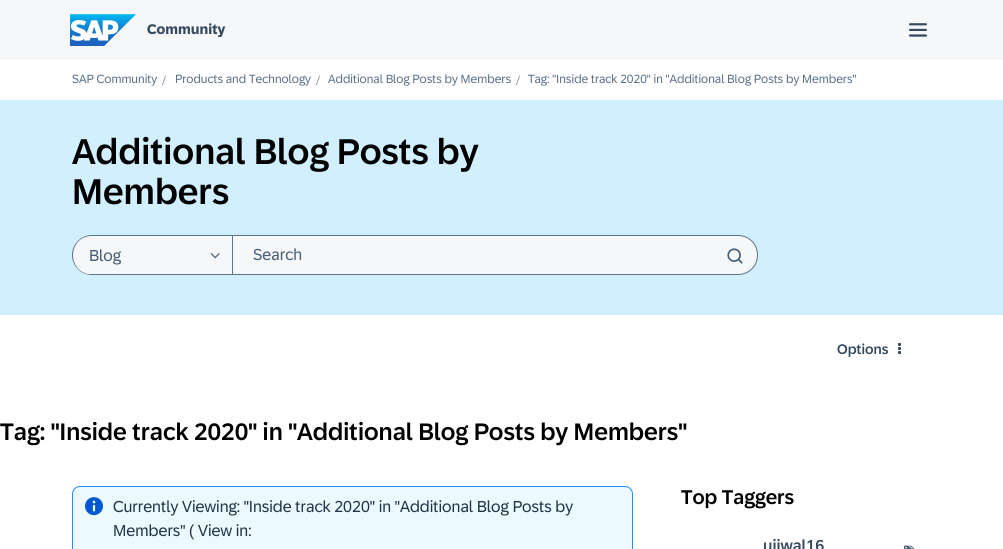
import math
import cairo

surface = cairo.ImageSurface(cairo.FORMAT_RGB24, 1003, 549)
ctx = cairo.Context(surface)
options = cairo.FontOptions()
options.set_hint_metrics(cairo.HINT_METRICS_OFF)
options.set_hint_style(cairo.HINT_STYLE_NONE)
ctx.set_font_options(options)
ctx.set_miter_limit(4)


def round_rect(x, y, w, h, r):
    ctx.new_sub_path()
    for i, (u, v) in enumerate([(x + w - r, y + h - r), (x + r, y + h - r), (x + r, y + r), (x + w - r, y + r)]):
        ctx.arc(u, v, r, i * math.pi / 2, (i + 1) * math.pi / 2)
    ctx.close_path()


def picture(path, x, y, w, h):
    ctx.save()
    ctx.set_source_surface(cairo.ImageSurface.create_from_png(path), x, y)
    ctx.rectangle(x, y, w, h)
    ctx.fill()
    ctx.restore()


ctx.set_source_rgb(1, 1, 1)
ctx.paint()
ctx.set_source_rgb(0.961, 0.965, 0.969)
ctx.rectangle(0, 0, 1003, 60)
ctx.fill()
picture("img1.png", 70, 14, 66, 32)
ctx.select_font_face("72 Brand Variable", cairo.FONT_SLANT_NORMAL, cairo.FONT_WEIGHT_BOLD)
ctx.set_font_size(14)
ctx.set_source_rgb(0.208, 0.29, 0.373)
ctx.move_to(147, 34)
ctx.show_text("Community")
picture("img2.png", 909, 23, 18, 14)
ctx.select_font_face("72 Brand Variable")
ctx.set_font_size(12)
ctx.set_source_rgb(0.357, 0.451, 0.545)
ctx.move_to(72, 83)
ctx.show_text("SAP Community")
ctx.select_font_face("Liberation Serif")
ctx.set_font_size(14)
ctx.move_to(162, 85)
ctx.show_text("/")
ctx.select_font_face("72 Brand Variable")
ctx.set_font_size(12)
ctx.move_to(175, 83)
ctx.show_text("Products and Technology")
ctx.select_font_face("Liberation Serif")
ctx.set_font_size(14)
ctx.move_to(316, 85)
ctx.show_text("/")
ctx.select_font_face("72 Brand Variable")
ctx.set_font_size(12)
ctx.move_to(328, 83)
ctx.show_text("Additional Blog Posts by Members")
ctx.select_font_face("Liberation Serif")
ctx.set_font_size(14)
ctx.move_to(516, 85)
ctx.show_text("/")
ctx.select_font_face("72 Brand Variable")
ctx.set_font_size(12)
ctx.move_to(528, 83)
ctx.show_text("Tag: \"Inside track 2020\" in \"Additional Blog Posts by Members\"")
ctx.set_source_rgb(0.82, 0.937, 1)
ctx.rectangle(0, 100, 1003, 215)
ctx.fill()
ctx.select_font_face("72 Brand Variable Medium")
ctx.set_font_size(36)
ctx.set_source_rgb(0, 0, 0)
ctx.move_to(72, 164)
ctx.show_text("Additional Blog Posts by")
ctx.move_to(72, 204)
ctx.show_text("Members")
ctx.set_source_rgb(0.961, 0.965, 0.969)
ctx.new_path()
ctx.move_to(92, 235)
ctx.line_to(232, 235)
ctx.line_to(232, 275)
ctx.line_to(92, 275)
ctx.curve_to(81, 275, 72, 266, 72, 255)
ctx.curve_to(72, 244, 81, 235, 92, 235)
ctx.close_path()
ctx.fill()
ctx.set_source_rgb(0.357, 0.451, 0.545)
ctx.set_fill_rule(cairo.FILL_RULE_EVEN_ODD)
ctx.new_path()
ctx.move_to(92, 235)
ctx.line_to(232, 235)
ctx.line_to(232, 275)
ctx.line_to(92, 275)
ctx.curve_to(81, 275, 72, 266, 72, 255)
ctx.curve_to(72, 244, 81, 235, 92, 235)
ctx.close_path()
ctx.move_to(92, 236)
ctx.line_to(232, 236)
ctx.line_to(232, 274)
ctx.line_to(88, 274)
ctx.curve_to(66, 269, 69, 236, 92, 236)
ctx.close_path()
ctx.fill()
ctx.select_font_face("72 Brand Variable")
ctx.set_font_size(16)
ctx.set_source_rgb(0.278, 0.369, 0.459)
ctx.move_to(89, 261)
ctx.show_text("Blog")
picture("img3.png", 210, 253, 10, 6)
ctx.set_source_rgb(0.961, 0.965, 0.969)
ctx.new_path()
ctx.move_to(232.5, 235.5)
ctx.line_to(738, 235.5)
ctx.curve_to(749, 235.5, 757.5, 244, 757.5, 255)
ctx.curve_to(757.5, 266, 749, 274.5, 738, 274.5)
ctx.line_to(232.5, 274.5)
ctx.close_path()
ctx.fill_preserve()
ctx.set_source_rgb(0.357, 0.451, 0.545)
ctx.set_line_width(1)
ctx.stroke()
ctx.set_source_rgb(0.278, 0.369, 0.459)
ctx.move_to(253, 260)
ctx.show_text("Search")
picture("img4.png", 727, 248, 16, 16)
ctx.select_font_face("72 Brand Variable Medium")
ctx.set_font_size(14)
ctx.set_source_rgb(0.208, 0.29, 0.373)
ctx.move_to(837, 354)
ctx.show_text("Options")
picture("img5.png", 898, 343, 3, 11)
ctx.set_font_size(24)
ctx.set_source_rgb(0, 0, 0)
ctx.move_to(0, 440)
ctx.show_text("Tag: \"Inside track 2020\" in \"Additional Blog Posts by Members\"")
ctx.set_source_rgb(0.922, 0.973, 1)
round_rect(72.5, 486.5, 560, 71, 7.5)
ctx.fill_preserve()
ctx.set_source_rgb(0.106, 0.565, 1)
ctx.stroke()
picture("img6.png", 85, 497, 18, 19)
ctx.select_font_face("72 Brand Variable")
ctx.set_font_size(16)
ctx.set_source_rgb(0.133, 0.208, 0.282)
ctx.move_to(113, 512)
ctx.show_text("Currently Viewing: \"Inside track 2020\" in \"Additional Blog Posts by")
ctx.move_to(113, 536)
ctx.show_text("Members\" ( View in:")
ctx.select_font_face("72 Brand Variable Medium")
ctx.set_font_size(20)
ctx.set_source_rgb(0, 0, 0)
ctx.move_to(681, 504)
ctx.show_text("Top Taggers")
ctx.set_font_size(16)
ctx.set_source_rgb(0.208, 0.29, 0.373)
ctx.move_to(763, 551)
ctx.show_text("ujjwal16")
picture("img7.png", 904, 545, 11, 4)
surface.write_to_png("page.png")
